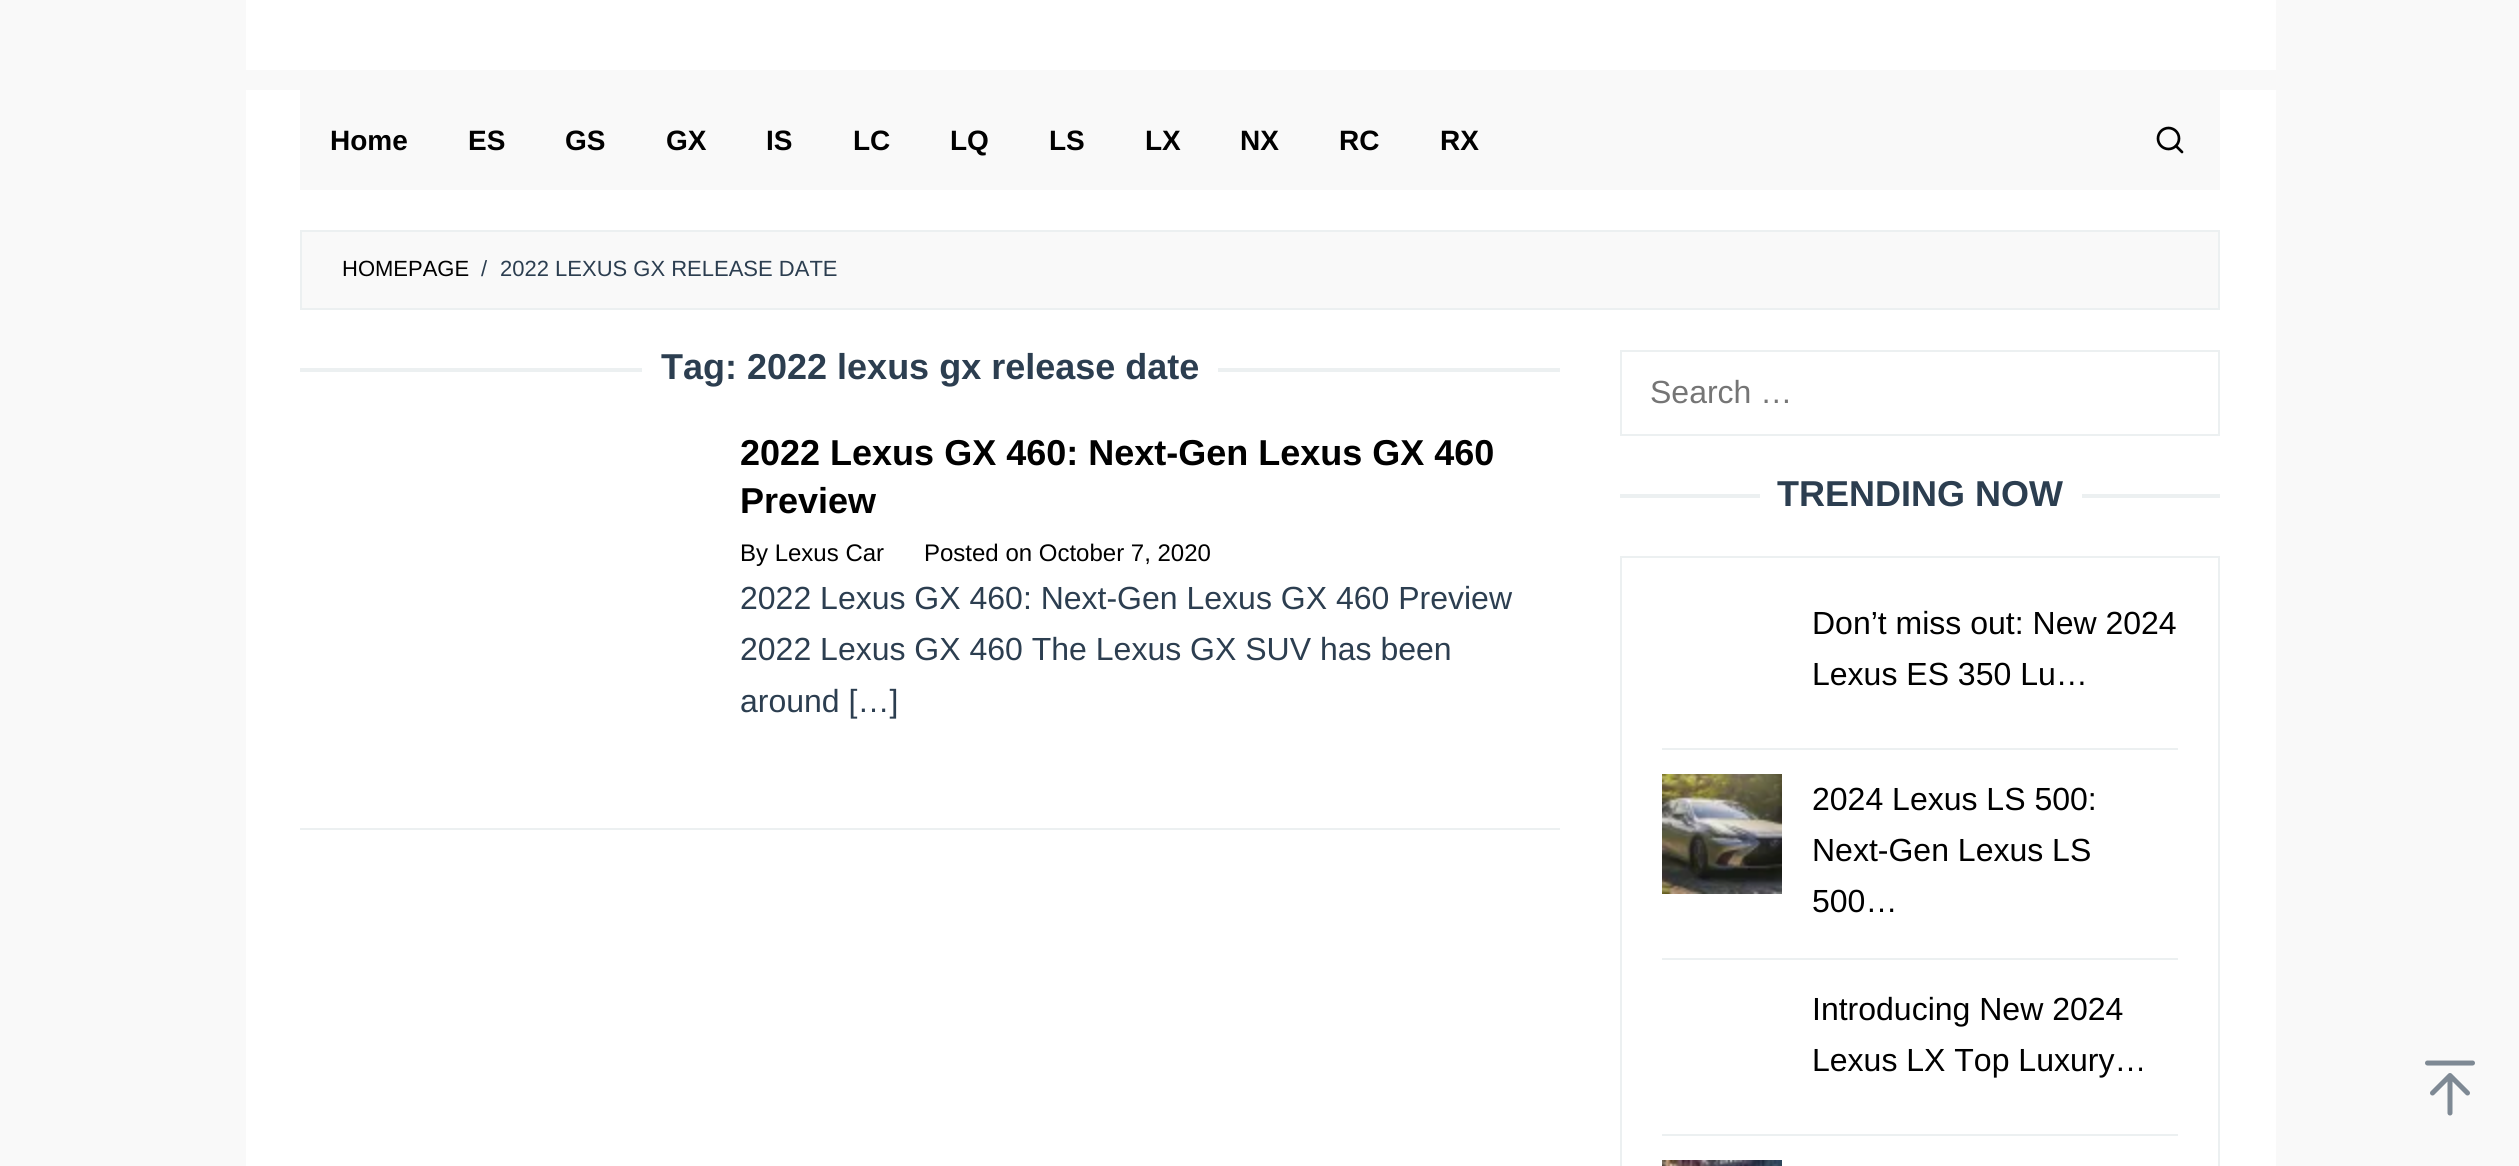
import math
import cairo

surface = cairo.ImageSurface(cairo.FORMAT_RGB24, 2519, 1166)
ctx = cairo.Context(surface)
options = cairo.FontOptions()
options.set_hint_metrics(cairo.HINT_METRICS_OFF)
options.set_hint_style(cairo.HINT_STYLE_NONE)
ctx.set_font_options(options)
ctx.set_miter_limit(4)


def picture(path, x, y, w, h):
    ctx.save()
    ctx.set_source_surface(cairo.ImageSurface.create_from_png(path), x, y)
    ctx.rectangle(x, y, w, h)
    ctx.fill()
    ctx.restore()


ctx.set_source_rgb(0.976, 0.976, 0.976)
ctx.paint()
ctx.set_source_rgb(1, 1, 1)
ctx.rectangle(246, 0, 2030, 70)
ctx.fill()
ctx.rectangle(246, 90, 2030, 1076)
ctx.fill()
ctx.set_source_rgb(0.976, 0.976, 0.976)
ctx.rectangle(300, 90, 1920, 100)
ctx.fill()
ctx.select_font_face("Liberation Sans", cairo.FONT_SLANT_NORMAL, cairo.FONT_WEIGHT_BOLD)
ctx.set_font_size(28)
ctx.set_source_rgb(0, 0, 0)
ctx.move_to(330, 150)
ctx.show_text("Home")
ctx.move_to(468, 150)
ctx.show_text("ES")
ctx.move_to(565, 150)
ctx.show_text("GS")
ctx.move_to(666, 150)
ctx.show_text("GX")
ctx.move_to(766, 150)
ctx.show_text("IS")
ctx.move_to(853, 150)
ctx.show_text("LC")
ctx.move_to(950, 150)
ctx.show_text("LQ")
ctx.move_to(1049, 150)
ctx.show_text("LS")
ctx.move_to(1145, 150)
ctx.show_text("LX")
ctx.move_to(1240, 150)
ctx.show_text("NX")
ctx.move_to(1339, 150)
ctx.show_text("RC")
ctx.move_to(1440, 150)
ctx.show_text("RX")
ctx.new_path()
ctx.arc(2168.5, 138.5, 10.5, 0, 2 * math.pi)
ctx.set_line_width(2.7)
ctx.stroke()
ctx.new_path()
ctx.move_to(2182, 152)
ctx.line_to(2176, 146)
ctx.set_line_cap(cairo.LINE_CAP_ROUND)
ctx.set_line_join(cairo.LINE_JOIN_ROUND)
ctx.stroke()
ctx.set_source_rgb(0.976, 0.976, 0.976)
ctx.rectangle(301, 231, 1918, 78)
ctx.fill_preserve()
ctx.set_source_rgb(0.925, 0.941, 0.945)
ctx.set_line_width(2)
ctx.set_line_cap(cairo.LINE_CAP_BUTT)
ctx.set_line_join(cairo.LINE_JOIN_MITER)
ctx.stroke()
ctx.select_font_face("Liberation Sans")
ctx.set_font_size(22)
ctx.set_source_rgb(0, 0, 0)
ctx.move_to(342, 276)
ctx.show_text("HOMEPAGE")
ctx.set_source_rgb(0.173, 0.243, 0.314)
ctx.move_to(481, 276)
ctx.show_text("/")
ctx.move_to(500, 276)
ctx.show_text("2022 LEXUS GX RELEASE DATE")
ctx.set_source_rgb(0.925, 0.941, 0.945)
ctx.rectangle(300, 368, 342, 4)
ctx.fill()
ctx.select_font_face("Liberation Sans", cairo.FONT_SLANT_NORMAL, cairo.FONT_WEIGHT_BOLD)
ctx.set_font_size(36)
ctx.set_source_rgb(0.173, 0.243, 0.314)
ctx.move_to(661, 379)
ctx.show_text("Tag: 2022 lexus gx release date")
ctx.set_source_rgb(0.925, 0.941, 0.945)
ctx.rectangle(1218, 368, 342, 4)
ctx.fill()
ctx.rectangle(300, 828, 1260, 2)
ctx.fill()
ctx.set_source_rgb(0, 0, 0)
ctx.move_to(740, 465)
ctx.show_text("2022 Lexus GX 460: Next-Gen Lexus GX 460")
ctx.move_to(740, 513)
ctx.show_text("Preview")
ctx.select_font_face("Liberation Sans")
ctx.set_font_size(24)
ctx.move_to(740, 561)
ctx.show_text("By Lexus Car")
ctx.move_to(924, 561)
ctx.show_text("Posted on October 7, 2020")
ctx.set_font_size(32)
ctx.set_source_rgb(0.173, 0.243, 0.314)
ctx.move_to(740, 609)
ctx.show_text("2022 Lexus GX 460: Next-Gen Lexus GX 460 Preview")
ctx.move_to(740, 660)
ctx.show_text("2022 Lexus GX 460 The Lexus GX SUV has been")
ctx.move_to(740, 712)
ctx.show_text("around […]")
ctx.rectangle(1621, 351, 598, 84)
ctx.set_source_rgb(0.925, 0.941, 0.945)
ctx.stroke()
ctx.set_source_rgb(0.459, 0.459, 0.459)
ctx.move_to(1650, 403)
ctx.show_text("Search …")
ctx.set_source_rgb(0.925, 0.941, 0.945)
ctx.rectangle(1620, 494, 140, 4)
ctx.fill()
ctx.select_font_face("Liberation Sans", cairo.FONT_SLANT_NORMAL, cairo.FONT_WEIGHT_BOLD)
ctx.set_font_size(36)
ctx.set_source_rgb(0.173, 0.243, 0.314)
ctx.move_to(1777, 506)
ctx.show_text("TRENDING NOW")
ctx.set_source_rgb(0.925, 0.941, 0.945)
ctx.rectangle(2082, 494, 138, 4)
ctx.fill()
ctx.rectangle(1621, 557, 598, 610)
ctx.stroke()
ctx.rectangle(1662, 748, 516, 2)
ctx.fill()
ctx.select_font_face("Liberation Sans")
ctx.set_font_size(32)
ctx.set_source_rgb(0, 0, 0)
ctx.move_to(1812, 634)
ctx.show_text("Don’t miss out: New 2024")
ctx.move_to(1812, 685)
ctx.show_text("Lexus ES 350 Lu…")
ctx.set_source_rgb(0.925, 0.941, 0.945)
ctx.rectangle(1662, 958, 516, 2)
ctx.fill()
picture("img1.png", 1662, 774, 120, 120)
ctx.set_source_rgb(0, 0, 0)
ctx.move_to(1812, 810)
ctx.show_text("2024 Lexus LS 500:")
ctx.move_to(1812, 861)
ctx.show_text("Next-Gen Lexus LS")
ctx.move_to(1812, 912)
ctx.show_text("500…")
ctx.set_source_rgb(0.925, 0.941, 0.945)
ctx.rectangle(1662, 1134, 516, 2)
ctx.fill()
ctx.set_source_rgb(0, 0, 0)
ctx.move_to(1812, 1020)
ctx.show_text("Introducing New 2024")
ctx.move_to(1812, 1071)
ctx.show_text("Lexus LX Top Luxury…")
picture("img2.png", 1662, 1160, 120, 6)
ctx.new_path()
ctx.move_to(2450, 1113)
ctx.line_to(2450, 1075.5)
ctx.move_to(2432.5, 1093)
ctx.line_to(2450, 1075.5)
ctx.line_to(2467.5, 1093)
ctx.move_to(2427.5, 1063)
ctx.line_to(2472.5, 1063)
ctx.set_source_rgb(0.494, 0.537, 0.58)
ctx.set_line_width(5)
ctx.set_line_cap(cairo.LINE_CAP_ROUND)
ctx.set_line_join(cairo.LINE_JOIN_ROUND)
ctx.stroke()
surface.write_to_png("page.png")
